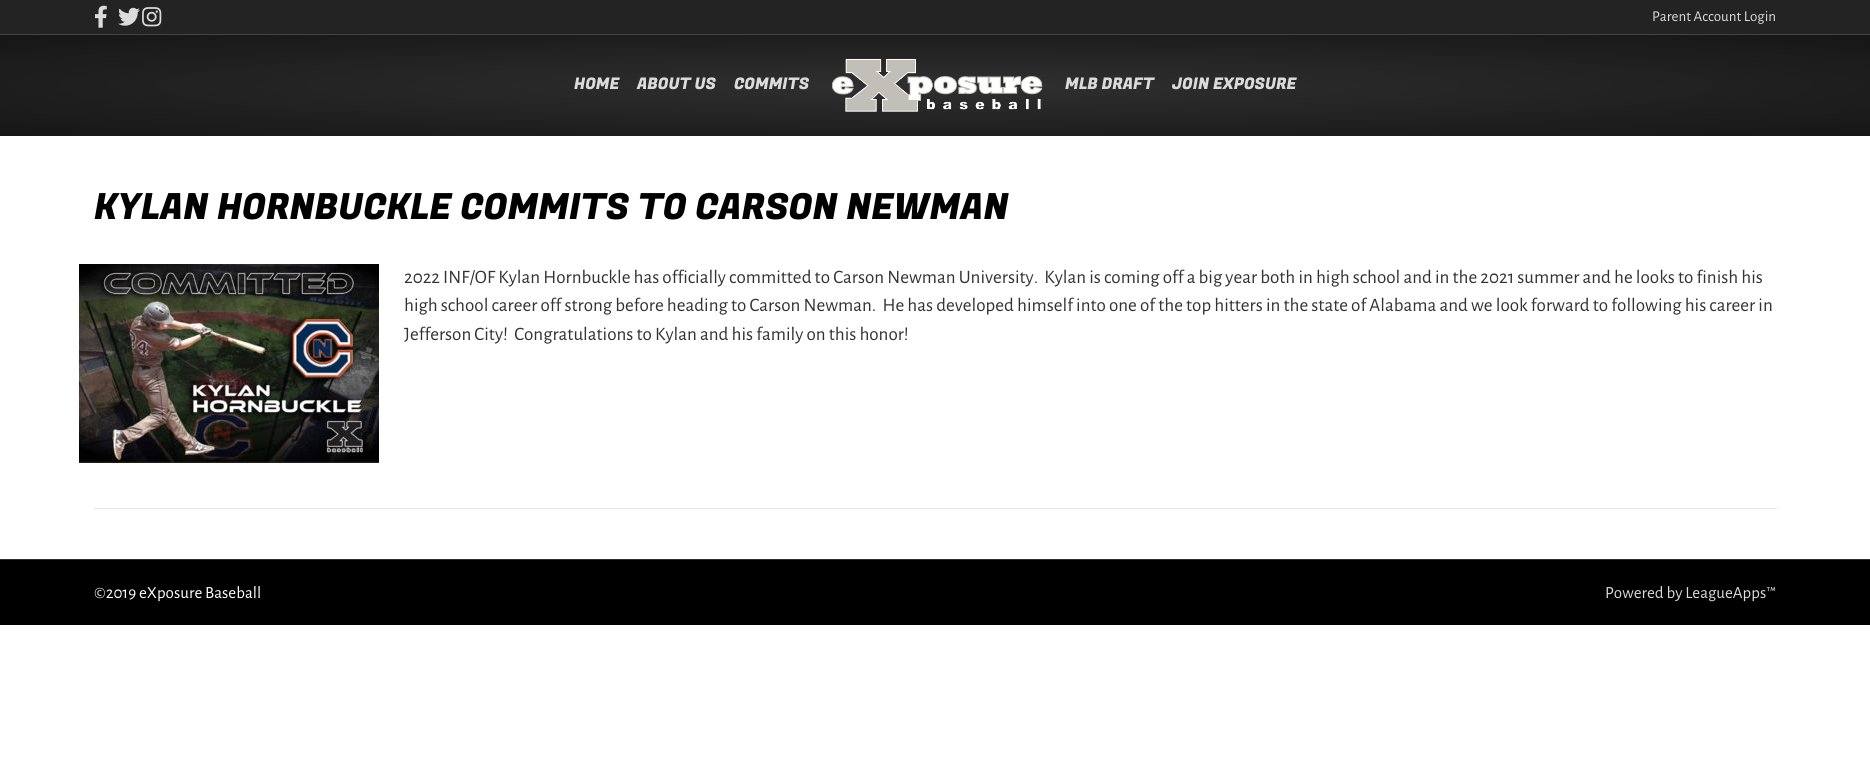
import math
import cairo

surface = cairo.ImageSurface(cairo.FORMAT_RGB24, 1870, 774)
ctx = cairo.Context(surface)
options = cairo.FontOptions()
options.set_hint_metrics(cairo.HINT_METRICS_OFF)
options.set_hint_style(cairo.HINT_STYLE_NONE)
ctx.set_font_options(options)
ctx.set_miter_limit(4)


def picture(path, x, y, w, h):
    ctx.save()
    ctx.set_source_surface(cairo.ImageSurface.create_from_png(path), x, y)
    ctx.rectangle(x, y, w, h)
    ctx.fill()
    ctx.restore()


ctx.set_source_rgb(1, 1, 1)
ctx.paint()
ctx.set_source_rgb(0.137, 0.137, 0.137)
ctx.rectangle(0, 0, 1870, 34)
ctx.fill()
ctx.set_source_rgb(0.267, 0.267, 0.267)
ctx.rectangle(0, 34, 1870, 1)
ctx.fill()
picture("img1.png", 95, 5, 12, 23)
picture("img2.png", 118, 7, 22, 19)
picture("img3.png", 142, 7, 20, 20)
ctx.select_font_face("Alegreya Sans")
ctx.set_font_size(15)
ctx.set_source_rgb(0.859, 0.859, 0.859)
ctx.move_to(1652, 21)
ctx.show_text("Parent Account Login")
gradient = cairo.RadialGradient(0, 0, 0, 0, 0, 1)
gradient.set_matrix(cairo.Matrix(1 / 1322, 0, 0, 1 / 71, -1 * 935 / 1322, -1 * 86 / 71))
gradient.add_color_stop_rgba(0, 0.188, 0.188, 0.188, 1)
gradient.add_color_stop_rgba(1, 0.086, 0.086, 0.086, 1)
ctx.set_source(gradient)
ctx.rectangle(0, 35, 1870, 101)
ctx.fill()
ctx.select_font_face("Fugaz One")
ctx.set_font_size(16)
ctx.set_source_rgb(0.859, 0.859, 0.859)
ctx.move_to(574, 89)
ctx.show_text("HOME")
ctx.move_to(637, 89)
ctx.show_text("ABOUT US")
ctx.move_to(734, 89)
ctx.show_text("COMMITS")
picture("img4.png", 832, 58, 211, 54)
ctx.move_to(1065, 89)
ctx.show_text("MLB DRAFT")
ctx.move_to(1172, 89)
ctx.show_text("JOIN EXPOSURE")
ctx.set_font_size(36)
ctx.set_source_rgb(0, 0, 0)
ctx.move_to(94, 219)
ctx.show_text("KYLAN HORNBUCKLE COMMITS TO CARSON NEWMAN")
picture("img5.png", 79, 264, 300, 199)
ctx.select_font_face("Alegreya Sans")
ctx.set_font_size(19)
ctx.set_source_rgb(0.2, 0.2, 0.2)
ctx.move_to(404, 283)
ctx.show_text("2022 INF/OF Kylan Hornbuckle has officially committed to Carson Newman University.  Kylan is coming off a big year both in high school and in the 2021 summer and he looks to finish his")
ctx.move_to(404, 311)
ctx.show_text("high school career off strong before heading to Carson Newman.  He has developed himself into one of the top hitters in the state of Alabama and we look forward to following his career in")
ctx.move_to(404, 340)
ctx.show_text("Jefferson City!  Congratulations to Kylan and his family on this honor!")
ctx.set_source_rgb(0.902, 0.902, 0.902)
ctx.rectangle(94, 508, 1683, 1)
ctx.fill()
ctx.set_source_rgb(0, 0, 0)
ctx.rectangle(0, 560, 1870, 65)
ctx.fill()
ctx.set_source_rgb(0.188, 0.188, 0.188)
ctx.rectangle(0, 559, 1870, 1)
ctx.fill()
ctx.set_font_size(17)
ctx.set_source_rgb(1, 1, 1)
ctx.move_to(94, 598)
ctx.show_text("©2019 eXposure Baseball")
ctx.set_source_rgb(0.859, 0.859, 0.859)
ctx.move_to(1605, 598)
ctx.show_text("Powered by LeagueApps™")
surface.write_to_png("page.png")
